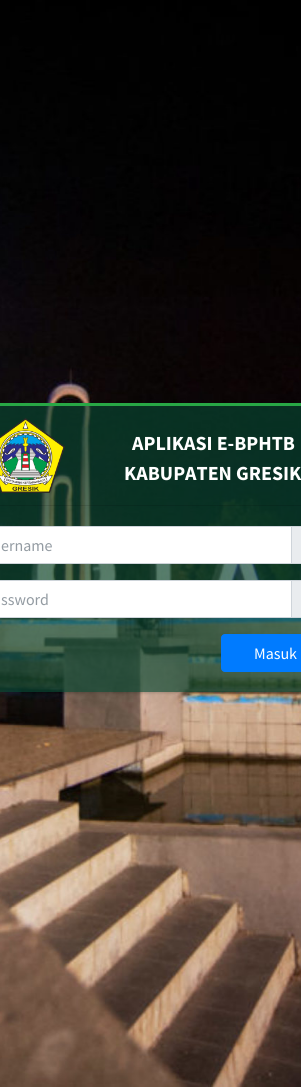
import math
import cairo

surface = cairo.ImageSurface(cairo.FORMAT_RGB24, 301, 1087)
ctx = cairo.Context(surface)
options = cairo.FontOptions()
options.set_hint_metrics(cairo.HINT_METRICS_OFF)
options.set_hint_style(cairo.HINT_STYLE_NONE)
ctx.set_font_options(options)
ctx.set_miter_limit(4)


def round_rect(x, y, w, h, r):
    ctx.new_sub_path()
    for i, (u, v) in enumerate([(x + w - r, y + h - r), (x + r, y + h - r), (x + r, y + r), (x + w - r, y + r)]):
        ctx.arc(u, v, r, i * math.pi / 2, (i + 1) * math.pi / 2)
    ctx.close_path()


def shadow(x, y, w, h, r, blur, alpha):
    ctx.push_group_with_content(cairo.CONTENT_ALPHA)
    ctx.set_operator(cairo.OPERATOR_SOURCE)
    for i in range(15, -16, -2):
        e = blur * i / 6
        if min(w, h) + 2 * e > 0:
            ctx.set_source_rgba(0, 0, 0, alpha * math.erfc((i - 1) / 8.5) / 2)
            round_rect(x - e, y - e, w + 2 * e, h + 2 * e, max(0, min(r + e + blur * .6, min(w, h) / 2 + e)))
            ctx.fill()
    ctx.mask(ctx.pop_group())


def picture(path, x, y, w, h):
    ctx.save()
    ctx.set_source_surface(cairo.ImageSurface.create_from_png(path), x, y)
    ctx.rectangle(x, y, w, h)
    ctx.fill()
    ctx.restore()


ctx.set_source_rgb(1, 1, 1)
ctx.paint()
picture("img1.png", 0, 0, 301, 1087)
ctx.save()
ctx.set_fill_rule(cairo.FILL_RULE_EVEN_ODD)
ctx.new_path()
ctx.move_to(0, 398)
ctx.line_to(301, 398)
ctx.line_to(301, 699)
ctx.line_to(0, 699)
ctx.close_path()
ctx.move_to(-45, 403)
ctx.line_to(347, 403)
ctx.curve_to(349, 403, 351, 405, 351, 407)
ctx.line_to(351, 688)
ctx.curve_to(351, 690, 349, 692, 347, 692)
ctx.line_to(-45, 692)
ctx.curve_to(-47, 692, -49, 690, -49, 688)
ctx.line_to(-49, 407)
ctx.curve_to(-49, 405, -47, 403, -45, 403)
ctx.close_path()
ctx.clip()
ctx.set_source_rgb(0, 0, 0)
shadow(-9, 404, 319, 289, 4, 1.5, 0.2)
ctx.restore()
ctx.set_source_rgba(0.031, 0.282, 0.2, 0.66)
ctx.rectangle(0, 406, 301, 286)
ctx.fill()
ctx.set_source_rgb(0.157, 0.655, 0.271)
ctx.rectangle(0, 403, 301, 3)
ctx.fill()
ctx.set_source_rgba(0, 0, 0, 0.12)
ctx.rectangle(0, 505, 301, 1)
ctx.fill()
picture("img2.png", 0, 418, 65, 75)
ctx.select_font_face("Source Sans Pro", cairo.FONT_SLANT_NORMAL, cairo.FONT_WEIGHT_BOLD)
ctx.set_font_size(20)
ctx.set_source_rgb(1, 1, 1)
ctx.move_to(132, 450)
ctx.show_text("APLIKASI E-BPHTB")
ctx.move_to(124, 480)
ctx.show_text("KABUPATEN GRESIK")
ctx.set_source_rgb(0.914, 0.925, 0.937)
ctx.rectangle(291.5, 526.5, 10, 37)
ctx.fill_preserve()
ctx.set_source_rgb(0.808, 0.831, 0.855)
ctx.set_line_width(1)
ctx.stroke()
ctx.set_source_rgb(1, 1, 1)
ctx.rectangle(-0.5, 526.5, 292, 37)
ctx.fill_preserve()
ctx.set_source_rgb(0.808, 0.831, 0.855)
ctx.stroke()
ctx.select_font_face("Source Sans Pro")
ctx.set_font_size(16)
ctx.set_source_rgb(0.576, 0.608, 0.635)
ctx.move_to(1, 551)
ctx.show_text("ername")
ctx.set_source_rgb(0.914, 0.925, 0.937)
ctx.rectangle(291.5, 580.5, 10, 37)
ctx.fill_preserve()
ctx.set_source_rgb(0.808, 0.831, 0.855)
ctx.stroke()
ctx.set_source_rgb(1, 1, 1)
ctx.rectangle(-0.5, 580.5, 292, 37)
ctx.fill_preserve()
ctx.set_source_rgb(0.808, 0.831, 0.855)
ctx.stroke()
ctx.set_source_rgb(0.576, 0.608, 0.635)
ctx.move_to(1, 605)
ctx.show_text("ssword")
ctx.set_source_rgb(0, 0.482, 1)
round_rect(221.5, 634.5, 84, 37, 3.5)
ctx.fill_preserve()
ctx.stroke()
ctx.set_source_rgb(1, 1, 1)
ctx.move_to(254, 659)
ctx.show_text("Masuk")
surface.write_to_png("page.png")
